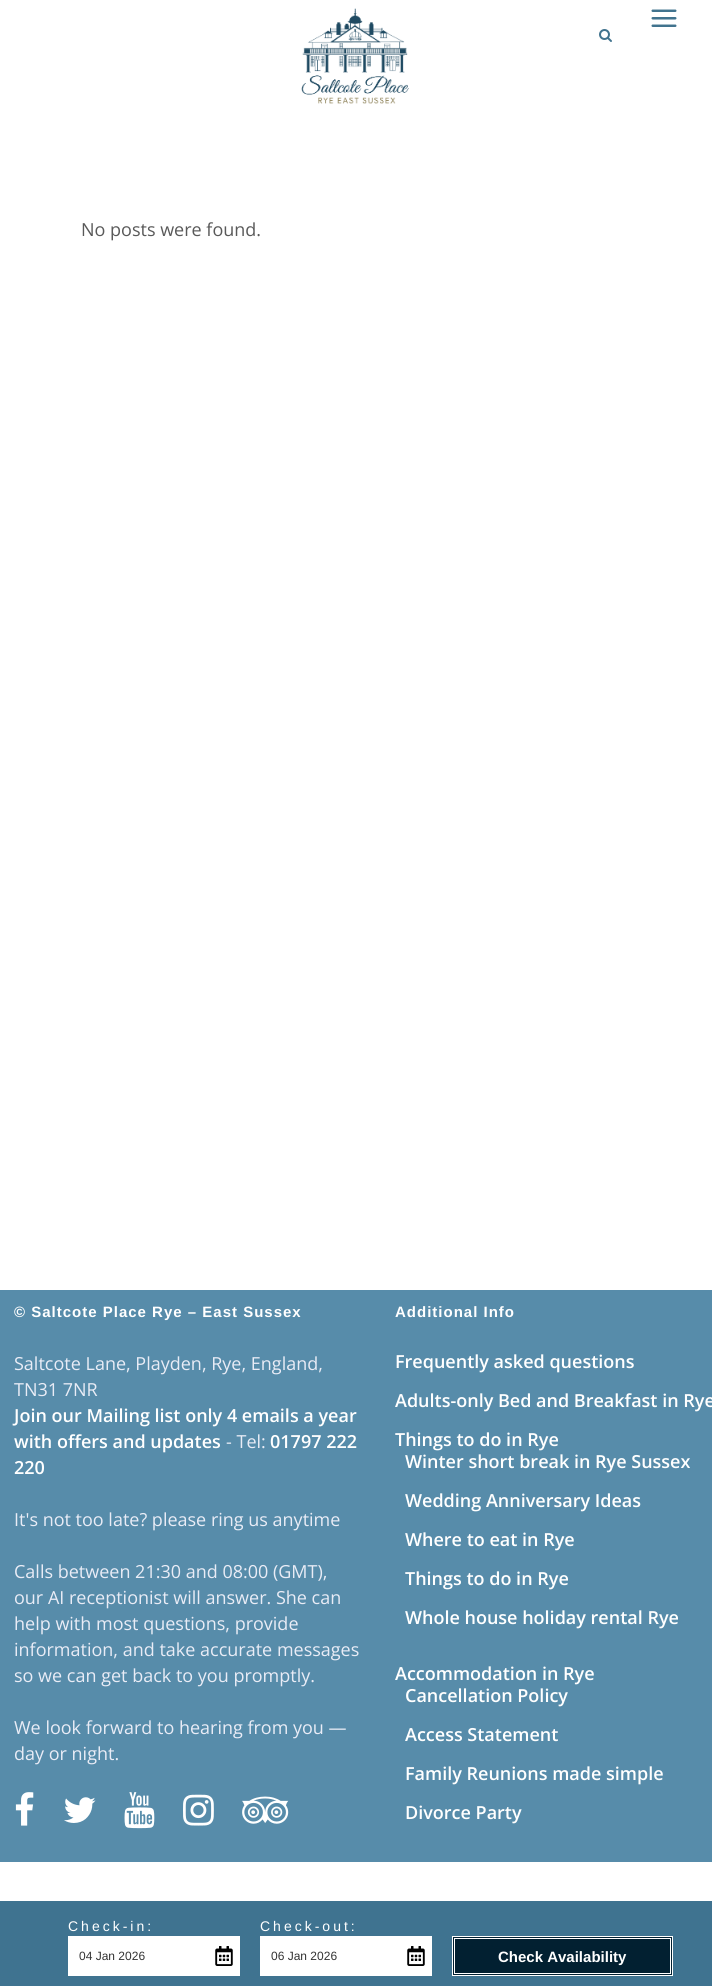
import math
import cairo

surface = cairo.ImageSurface(cairo.FORMAT_RGB24, 712, 1986)
ctx = cairo.Context(surface)
options = cairo.FontOptions()
options.set_hint_metrics(cairo.HINT_METRICS_OFF)
options.set_hint_style(cairo.HINT_STYLE_NONE)
ctx.set_font_options(options)
ctx.set_miter_limit(4)


def spaced_text(x, y, s, letter, word):
    ctx.move_to(x, y)
    for ch in s:
        ctx.show_text(ch)
        ctx.rel_move_to(letter + word * (ch == ' '), 0)


def picture(path, x, y, w, h):
    ctx.save()
    ctx.set_source_surface(cairo.ImageSurface.create_from_png(path), x, y)
    ctx.rectangle(x, y, w, h)
    ctx.fill()
    ctx.restore()


ctx.set_source_rgb(1, 1, 1)
ctx.paint()
picture("img1.png", 301, 8, 108, 96)
picture("img2.png", 651, 9, 26, 18)
picture("img3.png", 599, 29, 13, 13)
ctx.select_font_face("Open Sans")
ctx.set_font_size(18)
ctx.set_source_rgb(0.349, 0.349, 0.349)
ctx.move_to(81, 236)
ctx.show_text("No posts were found.")
ctx.set_source_rgb(0.341, 0.549, 0.667)
ctx.rectangle(0, 1290, 712, 572)
ctx.fill()
ctx.select_font_face("Liberation Sans", cairo.FONT_SLANT_NORMAL, cairo.FONT_WEIGHT_BOLD)
ctx.set_font_size(15)
ctx.set_source_rgb(1, 1, 1)
spaced_text(14, 1317, "© Saltcote Place Rye – East Sussex", 1, 0)
ctx.select_font_face("Open Sans")
ctx.set_font_size(18)
ctx.set_source_rgb(0.914, 0.925, 0.961)
ctx.move_to(14, 1370)
ctx.show_text("Saltcote Lane, Playden, Rye, England,")
ctx.move_to(14, 1396)
ctx.show_text("TN31 7NR")
ctx.select_font_face("Open Sans SemiBold")
ctx.set_source_rgb(1, 1, 1)
ctx.move_to(14, 1422)
ctx.show_text("Join our Mailing list only 4 emails a year")
ctx.move_to(14, 1448)
ctx.show_text("with offers and updates")
ctx.select_font_face("Open Sans")
ctx.set_source_rgb(0.914, 0.925, 0.961)
ctx.move_to(226, 1448)
ctx.show_text("- Tel:")
ctx.select_font_face("Open Sans SemiBold")
ctx.set_source_rgb(1, 1, 1)
ctx.move_to(270, 1448)
ctx.show_text("01797 222")
ctx.move_to(14, 1474)
ctx.show_text("220")
ctx.select_font_face("Open Sans")
ctx.set_source_rgb(0.914, 0.925, 0.961)
ctx.move_to(14, 1526)
ctx.show_text("It's not too late? please ring us anytime")
ctx.move_to(14, 1578)
ctx.show_text("Calls between 21:30 and 08:00 (GMT),")
ctx.move_to(14, 1604)
ctx.show_text("our AI receptionist will answer. She can")
ctx.move_to(14, 1630)
ctx.show_text("help with most questions, provide")
ctx.move_to(14, 1656)
ctx.show_text("information, and take accurate messages")
ctx.move_to(14, 1682)
ctx.show_text("so we can get back to you promptly.")
ctx.move_to(14, 1734)
ctx.show_text("We look forward to hearing from you —")
ctx.move_to(14, 1760)
ctx.show_text("day or night.")
picture("img4.png", 15, 1792, 19, 34)
picture("img5.png", 64, 1797, 32, 26)
picture("img6.png", 124, 1792, 31, 37)
picture("img7.png", 183, 1794, 31, 32)
picture("img8.png", 242, 1796, 47, 28)
ctx.select_font_face("Liberation Sans", cairo.FONT_SLANT_NORMAL, cairo.FONT_WEIGHT_BOLD)
ctx.set_font_size(15)
ctx.set_source_rgb(1, 1, 1)
spaced_text(395, 1317, "Additional Info", 1, 0)
ctx.select_font_face("Open Sans SemiBold")
ctx.set_font_size(18)
ctx.move_to(395, 1368)
ctx.show_text("Frequently asked questions")
ctx.move_to(395, 1407)
ctx.show_text("Adults-only Bed and Breakfast in Rye")
ctx.move_to(395, 1446)
ctx.show_text("Things to do in Rye")
ctx.move_to(405, 1468)
ctx.show_text("Winter short break in Rye Sussex")
ctx.move_to(405, 1507)
ctx.show_text("Wedding Anniversary Ideas")
ctx.move_to(405, 1546)
ctx.show_text("Where to eat in Rye")
ctx.move_to(405, 1585)
ctx.show_text("Things to do in Rye")
ctx.move_to(405, 1624)
ctx.show_text("Whole house holiday rental Rye")
ctx.move_to(395, 1680)
ctx.show_text("Accommodation in Rye")
ctx.move_to(405, 1702)
ctx.show_text("Cancellation Policy")
ctx.move_to(405, 1741)
ctx.show_text("Access Statement")
ctx.move_to(405, 1780)
ctx.show_text("Family Reunions made simple")
ctx.move_to(405, 1819)
ctx.show_text("Divorce Party")
ctx.set_source_rgb(0.247, 0.451, 0.565)
ctx.rectangle(0, 1901, 712, 85)
ctx.fill()
ctx.select_font_face("Liberation Sans")
ctx.set_font_size(14)
ctx.set_source_rgb(1, 1, 1)
spaced_text(68, 1931, "Check-in:", 3, 0)
ctx.rectangle(68, 1936, 172, 40)
ctx.fill()
picture("img9.png", 215, 1946, 18, 20)
ctx.set_font_size(12)
ctx.set_source_rgb(0.2, 0.2, 0.2)
ctx.move_to(79, 1960)
ctx.show_text("04 Jan 2026")
ctx.set_font_size(14)
ctx.set_source_rgb(1, 1, 1)
spaced_text(260, 1931, "Check-out:", 3, 0)
ctx.rectangle(260, 1936, 172, 40)
ctx.fill()
picture("img9.png", 407, 1946, 18, 20)
ctx.set_font_size(12)
ctx.set_source_rgb(0.2, 0.2, 0.2)
ctx.move_to(271, 1960)
ctx.show_text("06 Jan 2026")
ctx.set_source_rgb(0.008, 0.125, 0.192)
ctx.rectangle(452.5, 1936.5, 220, 39)
ctx.fill_preserve()
ctx.set_source_rgb(1, 1, 1)
ctx.set_line_width(1)
ctx.stroke()
ctx.rectangle(454.5, 1938.5, 216, 35)
ctx.stroke()
ctx.select_font_face("Liberation Sans", cairo.FONT_SLANT_NORMAL, cairo.FONT_WEIGHT_BOLD)
ctx.set_font_size(15)
ctx.move_to(498, 1962)
ctx.show_text("Check Availability")
surface.write_to_png("page.png")
